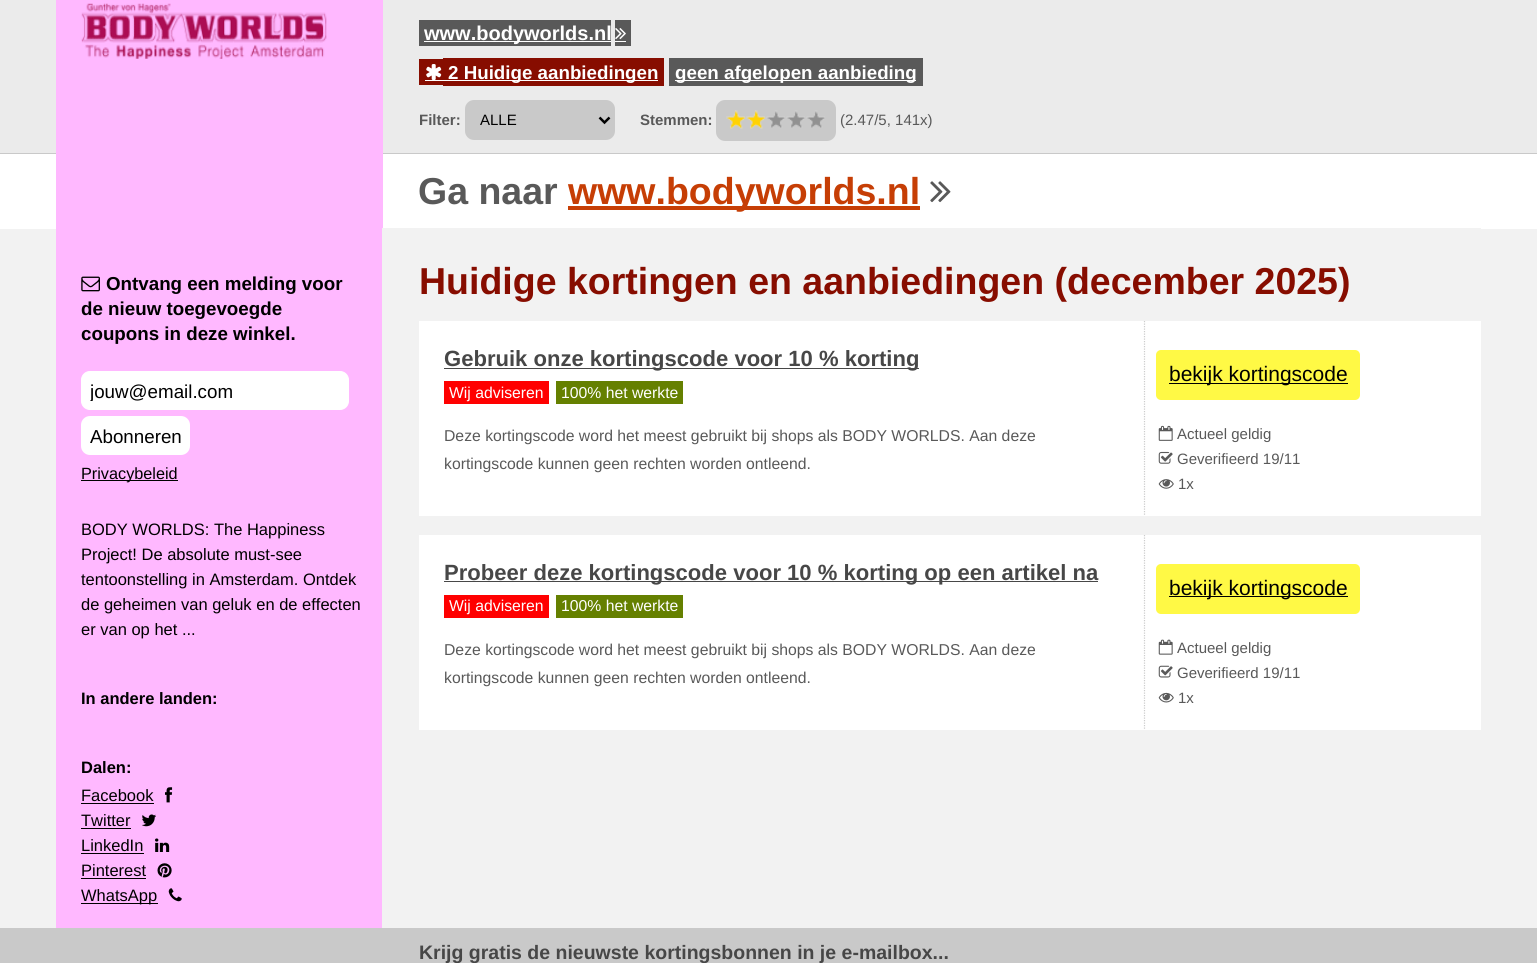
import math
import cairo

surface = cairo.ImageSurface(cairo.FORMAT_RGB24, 1537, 963)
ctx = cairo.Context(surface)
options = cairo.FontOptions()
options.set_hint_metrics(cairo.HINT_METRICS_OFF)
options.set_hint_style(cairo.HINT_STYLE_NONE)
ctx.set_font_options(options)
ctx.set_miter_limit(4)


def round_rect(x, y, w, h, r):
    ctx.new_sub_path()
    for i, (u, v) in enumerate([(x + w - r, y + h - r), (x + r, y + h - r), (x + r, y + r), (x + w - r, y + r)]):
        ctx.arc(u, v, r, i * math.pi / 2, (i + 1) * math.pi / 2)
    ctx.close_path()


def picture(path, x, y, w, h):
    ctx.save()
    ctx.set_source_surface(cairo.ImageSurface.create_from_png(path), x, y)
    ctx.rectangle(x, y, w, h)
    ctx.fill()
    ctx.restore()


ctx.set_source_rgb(0.949, 0.949, 0.949)
ctx.paint()
ctx.set_source_rgb(0.918, 0.918, 0.918)
ctx.rectangle(0, 0, 1537, 153)
ctx.fill()
ctx.set_source_rgb(0.788, 0.788, 0.788)
ctx.rectangle(0, 153, 1537, 1)
ctx.fill()
ctx.set_source_rgb(1, 1, 1)
ctx.rectangle(0, 154, 1537, 75)
ctx.fill()
ctx.set_source_rgb(1, 0.722, 1)
ctx.rectangle(56, 0, 327, 229)
ctx.fill()
picture("img1.png", 81, 3, 246, 56)
ctx.set_source_rgb(0.349, 0.349, 0.349)
ctx.rectangle(419, 20, 192, 26)
ctx.fill()
ctx.set_source_rgb(1, 1, 1)
ctx.rectangle(424, 41, 187, 1)
ctx.fill()
ctx.select_font_face("Liberation Sans", cairo.FONT_SLANT_NORMAL, cairo.FONT_WEIGHT_BOLD)
ctx.set_font_size(20)
ctx.move_to(424, 40)
ctx.show_text("www.bodyworlds.nl")
ctx.set_source_rgb(0.349, 0.349, 0.349)
ctx.rectangle(615, 20, 16, 26)
ctx.fill()
ctx.set_source_rgb(1, 1, 1)
ctx.rectangle(615, 41, 11, 1)
ctx.fill()
picture("img2.png", 615, 28, 11, 12)
ctx.set_source_rgb(0.529, 0.051, 0)
ctx.rectangle(419, 59, 24, 26)
ctx.fill()
picture("img3.png", 426, 64, 16, 16)
ctx.rectangle(443, 58, 221, 28)
ctx.fill()
ctx.set_source_rgb(1, 1, 1)
ctx.rectangle(425, 80, 233, 1)
ctx.fill()
ctx.set_font_size(18.75)
ctx.move_to(448, 79)
ctx.show_text("2 Huidige aanbiedingen")
ctx.set_source_rgb(0.349, 0.349, 0.349)
ctx.rectangle(669, 58, 254, 28)
ctx.fill()
ctx.set_source_rgb(1, 1, 1)
ctx.rectangle(675, 80, 241, 1)
ctx.fill()
ctx.move_to(675, 79)
ctx.show_text("geen afgelopen aanbieding")
ctx.set_font_size(15)
ctx.set_source_rgb(0.349, 0.349, 0.349)
ctx.move_to(419, 125)
ctx.show_text("Filter:")
ctx.set_source_rgb(0.788, 0.788, 0.788)
round_rect(465, 100, 150, 40, 9)
ctx.fill()
ctx.new_path()
ctx.move_to(599.5, 117.5)
ctx.line_to(604.5, 122.5)
ctx.line_to(609.5, 117.5)
ctx.set_source_rgb(0, 0, 0)
ctx.set_line_width(2.5)
ctx.stroke()
ctx.select_font_face("Liberation Sans")
ctx.move_to(480, 125)
ctx.show_text("ALLE")
ctx.select_font_face("Liberation Sans", cairo.FONT_SLANT_NORMAL, cairo.FONT_WEIGHT_BOLD)
ctx.set_source_rgb(0.349, 0.349, 0.349)
ctx.move_to(640, 125)
ctx.show_text("Stemmen:")
ctx.set_source_rgb(0.788, 0.788, 0.788)
round_rect(716, 100, 120, 41, 9)
ctx.fill()
picture("img4.png", 726, 110, 20, 19)
picture("img4.png", 746, 110, 20, 19)
picture("img5.png", 766, 110, 19, 18)
picture("img5.png", 786, 110, 19, 18)
picture("img5.png", 806, 110, 19, 18)
ctx.select_font_face("Liberation Sans")
ctx.set_source_rgb(0.349, 0.349, 0.349)
ctx.move_to(840, 125)
ctx.show_text("(2.47/5, 141x)")
ctx.select_font_face("Liberation Sans", cairo.FONT_SLANT_NORMAL, cairo.FONT_WEIGHT_BOLD)
ctx.set_font_size(37.5)
ctx.move_to(418, 204)
ctx.show_text("Ga naar")
ctx.set_source_rgb(0.776, 0.243, 0.02)
ctx.rectangle(568, 206, 352, 4)
ctx.fill()
ctx.move_to(568, 204)
ctx.show_text("www.bodyworlds.nl")
picture("img6.png", 930, 181, 21, 22)
ctx.set_source_rgb(1, 0.722, 1)
ctx.rectangle(56, 229, 326, 699)
ctx.fill()
ctx.set_source_rgb(0.949, 0.949, 0.949)
ctx.rectangle(382, 228, 1099, 1)
ctx.fill()
picture("img7.png", 81, 276, 19, 16)
ctx.set_font_size(18.75)
ctx.set_source_rgb(0, 0, 0)
ctx.move_to(106, 290)
ctx.show_text("Ontvang een melding voor")
ctx.move_to(81, 315)
ctx.show_text("de nieuw toegevoegde")
ctx.move_to(81, 340)
ctx.show_text("coupons in deze winkel.")
ctx.set_source_rgb(1, 1, 1)
round_rect(81.5, 371.5, 267, 38, 8.5)
ctx.fill_preserve()
ctx.set_line_width(1)
ctx.stroke()
ctx.save()
ctx.rectangle(90, 380, 250, 21)
ctx.clip()
ctx.select_font_face("Liberation Sans")
ctx.set_source_rgb(0, 0, 0)
ctx.move_to(90, 398)
ctx.show_text("jouw@email.com")
ctx.restore()
round_rect(81, 416, 109, 39, 9)
ctx.fill()
ctx.select_font_face("Liberation Sans")
ctx.set_source_rgb(0, 0, 0)
ctx.move_to(90, 443)
ctx.show_text("Abonneren")
ctx.rectangle(81, 480, 97, 1)
ctx.fill()
ctx.set_font_size(16.25)
ctx.move_to(81, 479)
ctx.show_text("Privacybeleid")
ctx.set_font_size(16.5)
ctx.move_to(81, 535)
ctx.show_text("BODY WORLDS: The Happiness")
ctx.move_to(81, 560)
ctx.show_text("Project! De absolute must-see")
ctx.move_to(81, 585)
ctx.show_text("tentoonstelling in Amsterdam. Ontdek")
ctx.move_to(81, 610)
ctx.show_text("de geheimen van geluk en de effecten")
ctx.move_to(81, 635)
ctx.show_text("er van op het ...")
ctx.select_font_face("Liberation Sans", cairo.FONT_SLANT_NORMAL, cairo.FONT_WEIGHT_BOLD)
ctx.move_to(81, 704)
ctx.show_text("In andere landen:")
ctx.move_to(81, 773)
ctx.show_text("Dalen:")
ctx.select_font_face("Liberation Sans")
ctx.move_to(81, 801)
ctx.show_text("Facebook")
ctx.rectangle(81, 803, 73, 1)
ctx.fill()
picture("img8.png", 165, 787, 8, 16)
ctx.move_to(81, 826)
ctx.show_text("Twitter")
ctx.rectangle(81, 828, 50, 1)
ctx.fill()
picture("img9.png", 142, 814, 14, 13)
ctx.move_to(81, 851)
ctx.show_text("LinkedIn")
ctx.rectangle(81, 853, 63, 1)
ctx.fill()
picture("img10.png", 155, 838, 15, 14)
ctx.move_to(81, 876)
ctx.show_text("Pinterest")
ctx.rectangle(81, 878, 65, 1)
ctx.fill()
picture("img11.png", 157, 863, 15, 15)
ctx.rectangle(81, 903, 77, 1)
ctx.fill()
ctx.move_to(81, 901)
ctx.show_text("WhatsApp")
picture("img12.png", 168, 888, 14, 14)
ctx.select_font_face("Liberation Sans", cairo.FONT_SLANT_NORMAL, cairo.FONT_WEIGHT_BOLD)
ctx.set_font_size(37.5)
ctx.set_source_rgb(0.529, 0.051, 0)
ctx.move_to(419, 294)
ctx.show_text("Huidige kortingen en aanbiedingen (december 2025)")
ctx.set_source_rgb(1, 1, 1)
ctx.rectangle(419, 321, 1062, 195)
ctx.fill()
ctx.new_path()
ctx.move_to(1144.5, 321)
ctx.line_to(1144.5, 516)
ctx.set_source_rgb(0.8, 0.8, 0.8)
ctx.set_line_width(1.2)
ctx.set_dash([1.25, 1.25])
ctx.stroke()
ctx.set_source_rgb(0.278, 0.278, 0.278)
ctx.rectangle(444, 368, 475, 1)
ctx.fill()
ctx.set_font_size(22.05)
ctx.move_to(444, 366)
ctx.show_text("Gebruik onze kortingscode voor 10 % korting")
ctx.set_source_rgb(1, 0, 0)
ctx.rectangle(444, 381, 105, 23)
ctx.fill()
ctx.select_font_face("Liberation Sans")
ctx.set_font_size(15.75)
ctx.set_source_rgb(1, 1, 1)
ctx.move_to(449, 398)
ctx.show_text("Wij adviseren")
ctx.set_source_rgb(0.396, 0.502, 0)
ctx.rectangle(556, 381, 127, 23)
ctx.fill()
ctx.set_source_rgb(1, 1, 1)
ctx.move_to(561, 398)
ctx.show_text("100% het werkte")
ctx.set_source_rgb(0.349, 0.349, 0.349)
ctx.move_to(444, 441)
ctx.show_text("Deze kortingscode word het meest gebruikt bij shops als BODY WORLDS. Aan deze")
ctx.move_to(444, 469)
ctx.show_text("kortingscode kunnen geen rechten worden ontleend.")
ctx.set_source_rgb(1, 0.973, 0.271)
round_rect(1156, 350, 204, 50, 5)
ctx.fill()
ctx.set_source_rgb(0, 0, 0)
ctx.rectangle(1169, 383, 179, 1)
ctx.fill()
ctx.set_font_size(21)
ctx.move_to(1169, 381)
ctx.show_text("bekijk kortingscode")
picture("img13.png", 1158, 425, 15, 16)
ctx.set_font_size(15)
ctx.set_source_rgb(0.349, 0.349, 0.349)
ctx.move_to(1177, 439)
ctx.show_text("Actueel geldig")
picture("img14.png", 1158, 451, 15, 13)
ctx.move_to(1177, 464)
ctx.show_text("Geverifieerd 19/11")
picture("img15.png", 1158, 479, 16, 10)
ctx.move_to(1178, 489)
ctx.show_text("1x")
ctx.set_source_rgb(1, 1, 1)
ctx.rectangle(419, 535, 1062, 195)
ctx.fill()
ctx.new_path()
ctx.move_to(1144.5, 535)
ctx.line_to(1144.5, 730)
ctx.set_source_rgb(0.8, 0.8, 0.8)
ctx.stroke()
ctx.set_source_rgb(0.278, 0.278, 0.278)
ctx.rectangle(444, 581, 654, 1)
ctx.fill()
ctx.select_font_face("Liberation Sans", cairo.FONT_SLANT_NORMAL, cairo.FONT_WEIGHT_BOLD)
ctx.set_font_size(22.05)
ctx.move_to(444, 580)
ctx.show_text("Probeer deze kortingscode voor 10 % korting op een artikel na")
ctx.set_source_rgb(1, 0, 0)
ctx.rectangle(444, 595, 105, 23)
ctx.fill()
ctx.select_font_face("Liberation Sans")
ctx.set_font_size(15.75)
ctx.set_source_rgb(1, 1, 1)
ctx.move_to(449, 611)
ctx.show_text("Wij adviseren")
ctx.set_source_rgb(0.396, 0.502, 0)
ctx.rectangle(556, 595, 127, 23)
ctx.fill()
ctx.set_source_rgb(1, 1, 1)
ctx.move_to(561, 611)
ctx.show_text("100% het werkte")
ctx.set_source_rgb(0.349, 0.349, 0.349)
ctx.move_to(444, 655)
ctx.show_text("Deze kortingscode word het meest gebruikt bij shops als BODY WORLDS. Aan deze")
ctx.move_to(444, 683)
ctx.show_text("kortingscode kunnen geen rechten worden ontleend.")
ctx.set_source_rgb(1, 0.973, 0.271)
round_rect(1156, 564, 204, 50, 5)
ctx.fill()
ctx.set_source_rgb(0, 0, 0)
ctx.rectangle(1169, 596, 179, 1)
ctx.fill()
ctx.set_font_size(21)
ctx.move_to(1169, 595)
ctx.show_text("bekijk kortingscode")
picture("img16.png", 1158, 639, 15, 16)
ctx.set_font_size(15)
ctx.set_source_rgb(0.349, 0.349, 0.349)
ctx.move_to(1177, 653)
ctx.show_text("Actueel geldig")
picture("img17.png", 1158, 665, 15, 13)
ctx.move_to(1177, 678)
ctx.show_text("Geverifieerd 19/11")
picture("img18.png", 1158, 692, 16, 11)
ctx.move_to(1178, 703)
ctx.show_text("1x")
ctx.set_source_rgb(0.788, 0.788, 0.788)
ctx.rectangle(0, 928, 1537, 35)
ctx.fill()
ctx.select_font_face("Liberation Sans", cairo.FONT_SLANT_NORMAL, cairo.FONT_WEIGHT_BOLD)
ctx.set_font_size(19.5)
ctx.set_source_rgb(0.278, 0.278, 0.278)
ctx.move_to(419, 959)
ctx.show_text("Krijg gratis de nieuwste kortingsbonnen in je e-mailbox...")
surface.write_to_png("page.png")
